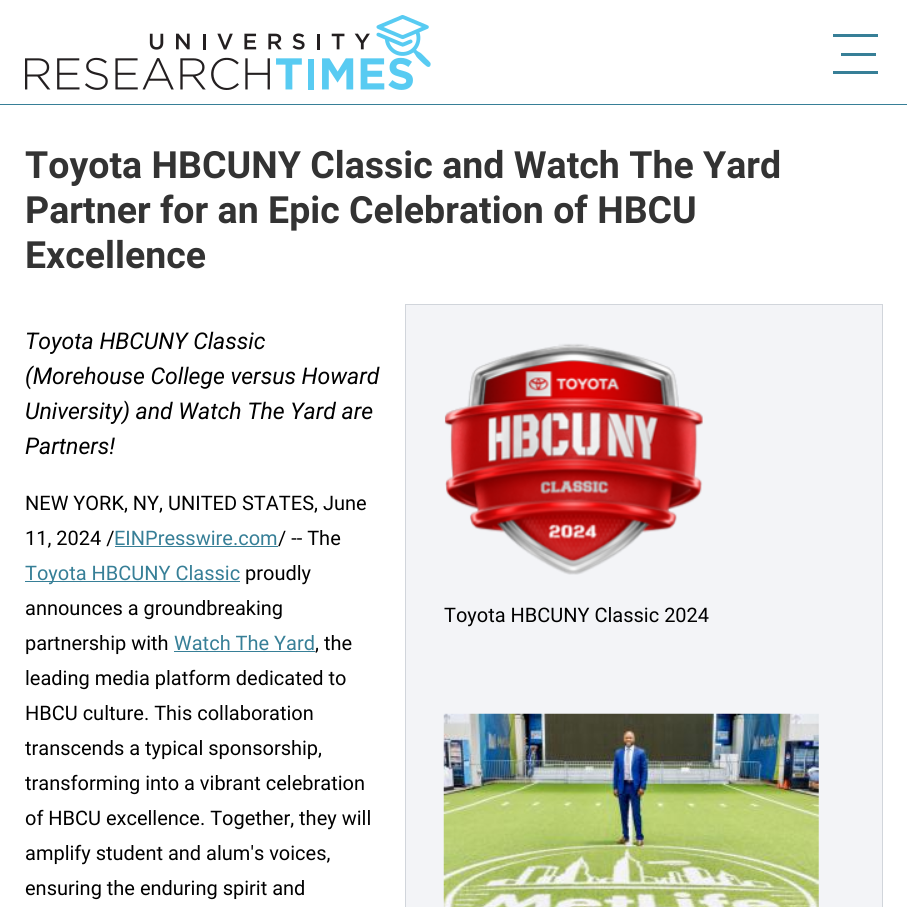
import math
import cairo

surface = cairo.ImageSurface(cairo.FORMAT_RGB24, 907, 907)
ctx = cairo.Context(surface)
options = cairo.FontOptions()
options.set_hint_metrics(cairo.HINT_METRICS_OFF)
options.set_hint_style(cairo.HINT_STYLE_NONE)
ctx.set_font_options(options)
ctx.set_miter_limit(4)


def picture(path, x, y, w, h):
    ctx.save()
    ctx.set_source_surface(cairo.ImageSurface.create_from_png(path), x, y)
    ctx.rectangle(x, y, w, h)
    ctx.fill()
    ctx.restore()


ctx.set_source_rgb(1, 1, 1)
ctx.paint()
picture("img1.png", 25, 15, 406, 75)
ctx.set_source_rgb(0.216, 0.498, 0.592)
ctx.rectangle(833, 34, 45, 3)
ctx.fill()
ctx.rectangle(841, 53, 35, 3)
ctx.fill()
ctx.rectangle(833, 71, 45, 3)
ctx.fill()
ctx.rectangle(0, 104, 907, 1)
ctx.fill()
ctx.select_font_face("Roboto", cairo.FONT_SLANT_NORMAL, cairo.FONT_WEIGHT_BOLD)
ctx.set_font_size(37.5)
ctx.set_source_rgb(0.2, 0.2, 0.2)
ctx.move_to(25, 178)
ctx.show_text("Toyota HBCUNY Classic and Watch The Yard")
ctx.move_to(25, 223)
ctx.show_text("Partner for an Epic Celebration of HBCU")
ctx.move_to(25, 268)
ctx.show_text("Excellence")
ctx.select_font_face("Roboto", cairo.FONT_SLANT_ITALIC)
ctx.set_font_size(23)
ctx.set_source_rgb(0, 0, 0)
ctx.move_to(25, 349)
ctx.show_text("Toyota HBCUNY Classic")
ctx.move_to(25, 384)
ctx.show_text("(Morehouse College versus Howard")
ctx.move_to(25, 419)
ctx.show_text("University) and Watch The Yard are")
ctx.move_to(25, 454)
ctx.show_text("Partners!")
ctx.select_font_face("Roboto")
ctx.set_font_size(20)
ctx.move_to(25, 510)
ctx.show_text("NEW YORK, NY, UNITED STATES, June")
ctx.move_to(25, 545)
ctx.show_text("11, 2024 /")
ctx.set_source_rgb(0.216, 0.498, 0.592)
ctx.move_to(114, 545)
ctx.show_text("EINPresswire.com")
ctx.rectangle(115, 546, 163, 1)
ctx.fill()
ctx.set_source_rgb(0, 0, 0)
ctx.move_to(278, 545)
ctx.show_text("/ -- The")
ctx.set_source_rgb(0.216, 0.498, 0.592)
ctx.rectangle(25, 581, 215, 1)
ctx.fill()
ctx.move_to(25, 580)
ctx.show_text("Toyota HBCUNY Classic")
ctx.set_source_rgb(0, 0, 0)
ctx.move_to(245, 580)
ctx.show_text("proudly")
ctx.move_to(25, 615)
ctx.show_text("announces a groundbreaking")
ctx.move_to(25, 650)
ctx.show_text("partnership with")
ctx.set_source_rgb(0.216, 0.498, 0.592)
ctx.move_to(174, 650)
ctx.show_text("Watch The Yard")
ctx.rectangle(174, 651, 141, 1)
ctx.fill()
ctx.set_source_rgb(0, 0, 0)
ctx.move_to(315, 650)
ctx.show_text(", the")
ctx.move_to(25, 685)
ctx.show_text("leading media platform dedicated to")
ctx.move_to(25, 720)
ctx.show_text("HBCU culture. This collaboration")
ctx.move_to(25, 755)
ctx.show_text("transcends a typical sponsorship,")
ctx.move_to(25, 790)
ctx.show_text("transforming into a vibrant celebration")
ctx.move_to(25, 825)
ctx.show_text("of HBCU excellence. Together, they will")
ctx.move_to(25, 860)
ctx.show_text("amplify student and alum's voices,")
ctx.move_to(25, 895)
ctx.show_text("ensuring the enduring spirit and")
ctx.set_source_rgb(0.953, 0.957, 0.965)
ctx.rectangle(405.5, 304.5, 477, 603)
ctx.fill_preserve()
ctx.set_source_rgb(0.82, 0.835, 0.859)
ctx.set_line_width(1)
ctx.stroke()
picture("img2.png", 444, 343, 259, 232)
ctx.set_source_rgb(0, 0, 0)
ctx.move_to(444, 622)
ctx.show_text("Toyota HBCUNY Classic 2024")
picture("img3.png", 443, 713, 376, 194)
surface.write_to_png("page.png")
